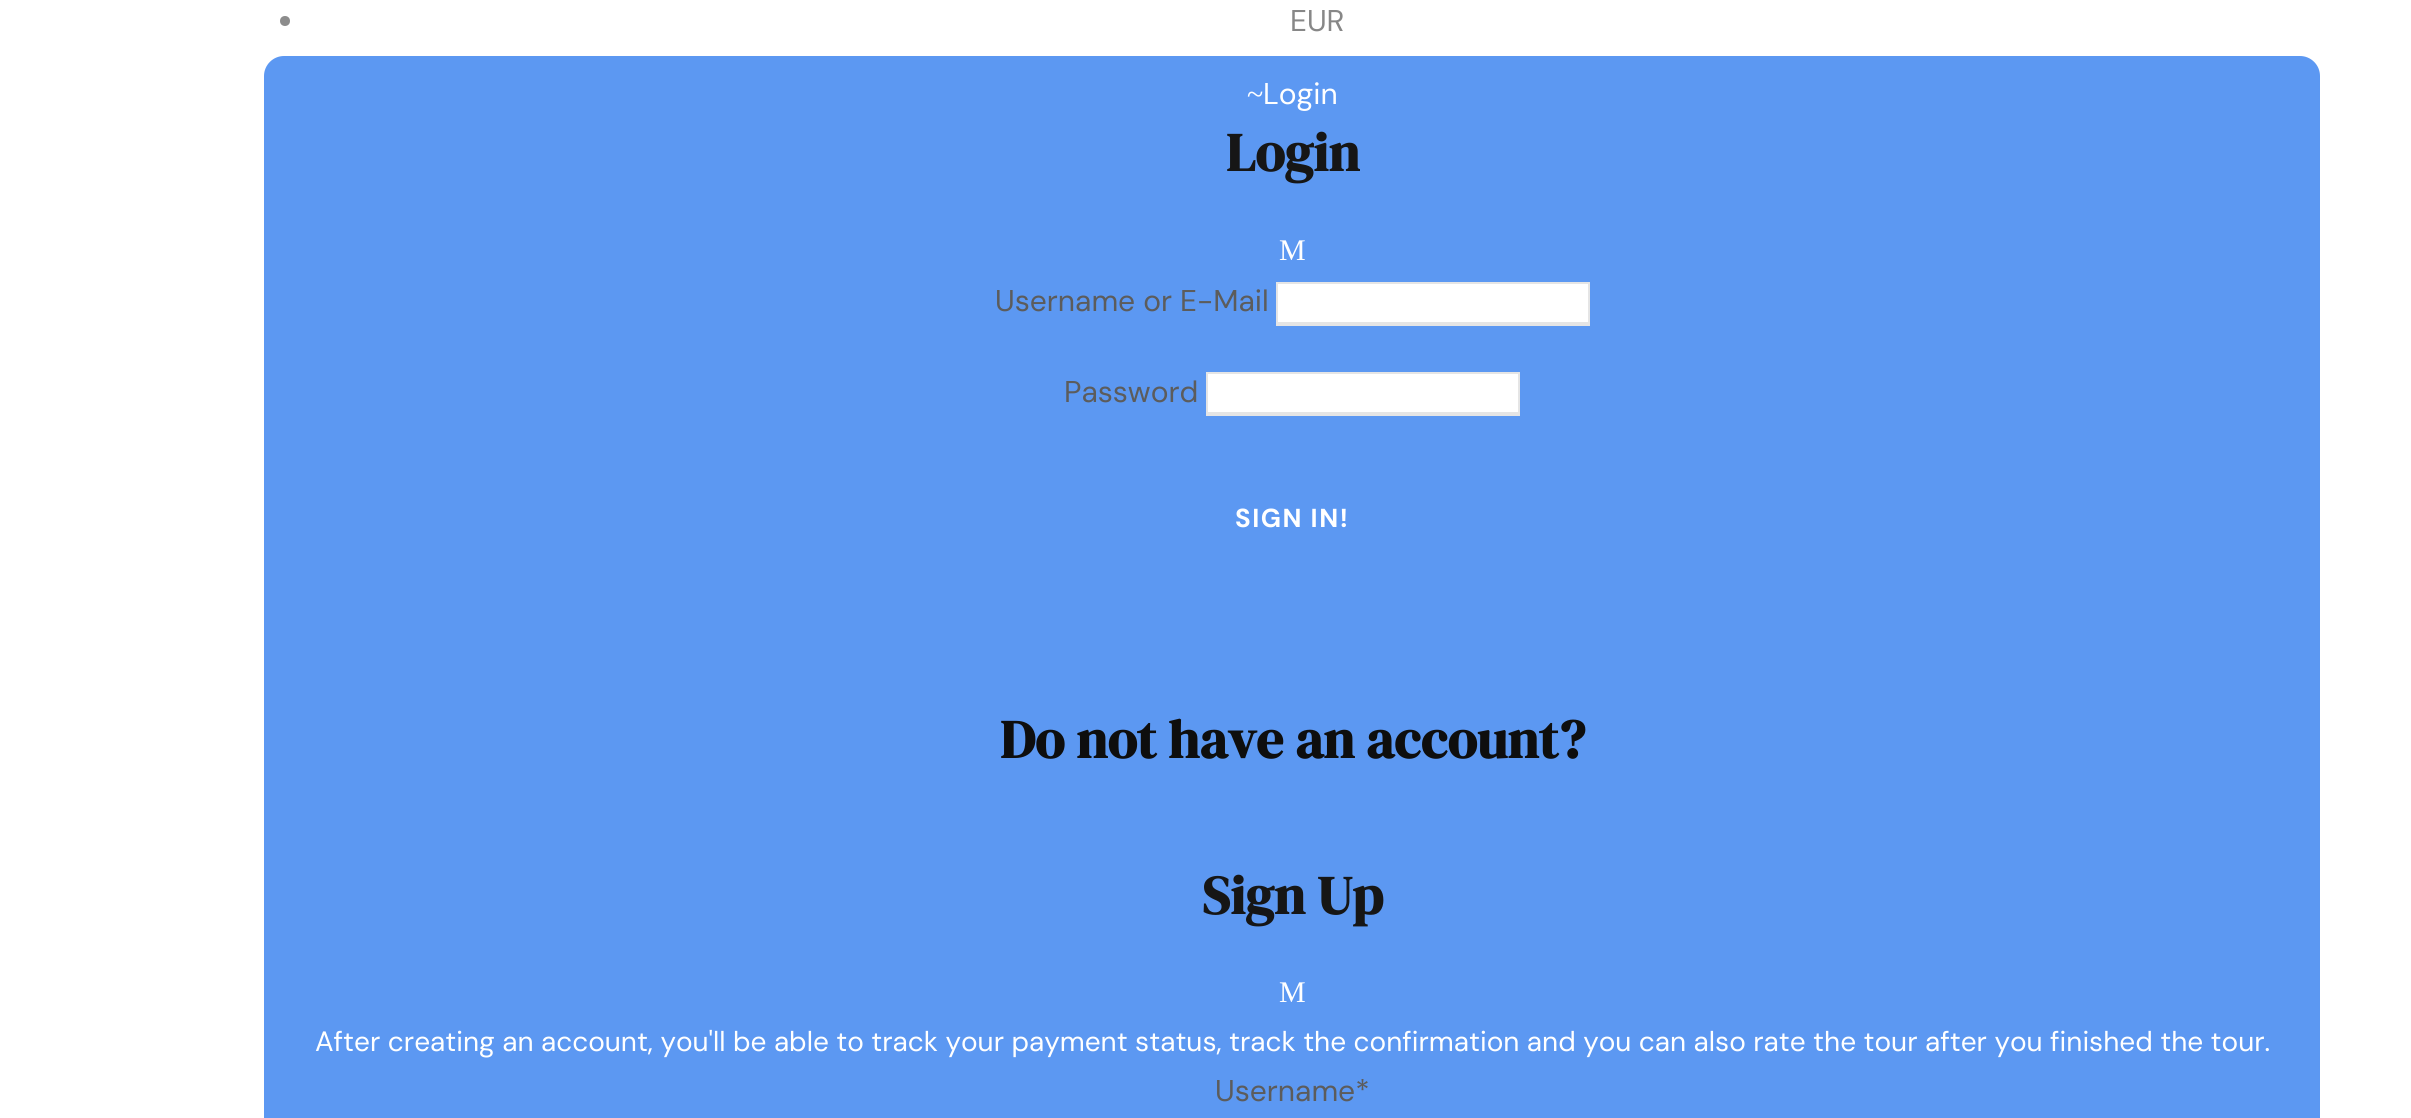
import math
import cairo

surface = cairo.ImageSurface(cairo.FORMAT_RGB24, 2411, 1118)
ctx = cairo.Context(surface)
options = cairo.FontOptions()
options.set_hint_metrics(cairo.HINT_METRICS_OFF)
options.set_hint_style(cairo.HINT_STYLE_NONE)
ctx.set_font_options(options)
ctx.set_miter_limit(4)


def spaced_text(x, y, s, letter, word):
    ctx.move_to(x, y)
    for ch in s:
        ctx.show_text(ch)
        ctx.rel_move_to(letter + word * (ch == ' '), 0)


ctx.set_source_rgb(1, 1, 1)
ctx.paint()
ctx.set_source_rgb(0.549, 0.549, 0.549)
ctx.arc(285, 21, 5, 0, 2 * math.pi)
ctx.fill()
ctx.select_font_face("DM Sans")
ctx.set_font_size(30)
ctx.set_source_rgb(0.529, 0.529, 0.529)
ctx.move_to(1290, 31)
ctx.show_text("EUR")
ctx.set_source_rgb(0.361, 0.596, 0.949)
ctx.new_path()
ctx.move_to(284, 56)
ctx.line_to(2300, 56)
ctx.curve_to(2311, 56, 2320, 65, 2320, 76)
ctx.line_to(2320, 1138)
ctx.line_to(264, 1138)
ctx.line_to(264, 76)
ctx.curve_to(264, 65, 273, 56, 284, 56)
ctx.close_path()
ctx.fill()
ctx.select_font_face("Liberation Serif")
ctx.set_source_rgb(1, 1, 1)
ctx.move_to(1247, 104)
ctx.show_text("~")
ctx.select_font_face("DM Sans")
ctx.move_to(1263, 104)
ctx.show_text("Login")
ctx.select_font_face("DM Serif Display", cairo.FONT_SLANT_NORMAL, cairo.FONT_WEIGHT_BOLD)
ctx.set_font_size(54)
ctx.set_source_rgb(0.086, 0.086, 0.086)
ctx.move_to(1226, 171)
ctx.show_text("Login")
ctx.select_font_face("Liberation Serif")
ctx.set_font_size(30)
ctx.set_source_rgb(1, 1, 1)
ctx.move_to(1279, 260)
ctx.show_text("M")
ctx.select_font_face("DM Sans")
ctx.set_source_rgb(0.361, 0.361, 0.361)
ctx.move_to(995, 311)
ctx.show_text("Username or E-Mail")
ctx.set_source_rgb(1, 1, 1)
ctx.rectangle(1278, 284, 310, 38)
ctx.fill()
ctx.set_source_rgb(0.898, 0.898, 0.898)
ctx.rectangle(1276, 282, 314, 2)
ctx.fill()
ctx.rectangle(1588, 282, 2, 44)
ctx.fill()
ctx.rectangle(1276, 322, 314, 4)
ctx.fill()
ctx.rectangle(1276, 282, 2, 44)
ctx.fill()
ctx.set_source_rgb(0.361, 0.361, 0.361)
ctx.move_to(1064, 402)
ctx.show_text("Password")
ctx.set_source_rgb(1, 1, 1)
ctx.rectangle(1208, 374, 310, 38)
ctx.fill()
ctx.set_source_rgb(0.898, 0.898, 0.898)
ctx.rectangle(1206, 372, 314, 2)
ctx.fill()
ctx.rectangle(1518, 372, 2, 44)
ctx.fill()
ctx.rectangle(1206, 412, 314, 4)
ctx.fill()
ctx.rectangle(1206, 372, 2, 44)
ctx.fill()
ctx.select_font_face("DM Sans", cairo.FONT_SLANT_NORMAL, cairo.FONT_WEIGHT_BOLD)
ctx.set_font_size(26)
ctx.set_source_rgb(1, 1, 1)
spaced_text(1235, 527, "SIGN IN!", 1.5, 0)
ctx.select_font_face("DM Serif Display", cairo.FONT_SLANT_NORMAL, cairo.FONT_WEIGHT_BOLD)
ctx.set_font_size(54)
ctx.set_source_rgb(0.055, 0.055, 0.055)
ctx.move_to(1000, 758)
ctx.show_text("Do not have an account?")
ctx.set_source_rgb(0.086, 0.086, 0.086)
ctx.move_to(1202, 914)
ctx.show_text("Sign Up")
ctx.select_font_face("Liberation Serif")
ctx.set_font_size(30)
ctx.set_source_rgb(1, 1, 1)
ctx.move_to(1279, 1002)
ctx.show_text("M")
ctx.select_font_face("DM Sans")
ctx.set_font_size(28)
ctx.move_to(315, 1051)
ctx.show_text("After creating an account, you'll be able to track your payment status, track the confirmation and you can also rate the tour after you finished the tour.")
ctx.set_font_size(30)
ctx.set_source_rgb(0.361, 0.361, 0.361)
ctx.move_to(1215, 1101)
ctx.show_text("Username*")
surface.write_to_png("page.png")
